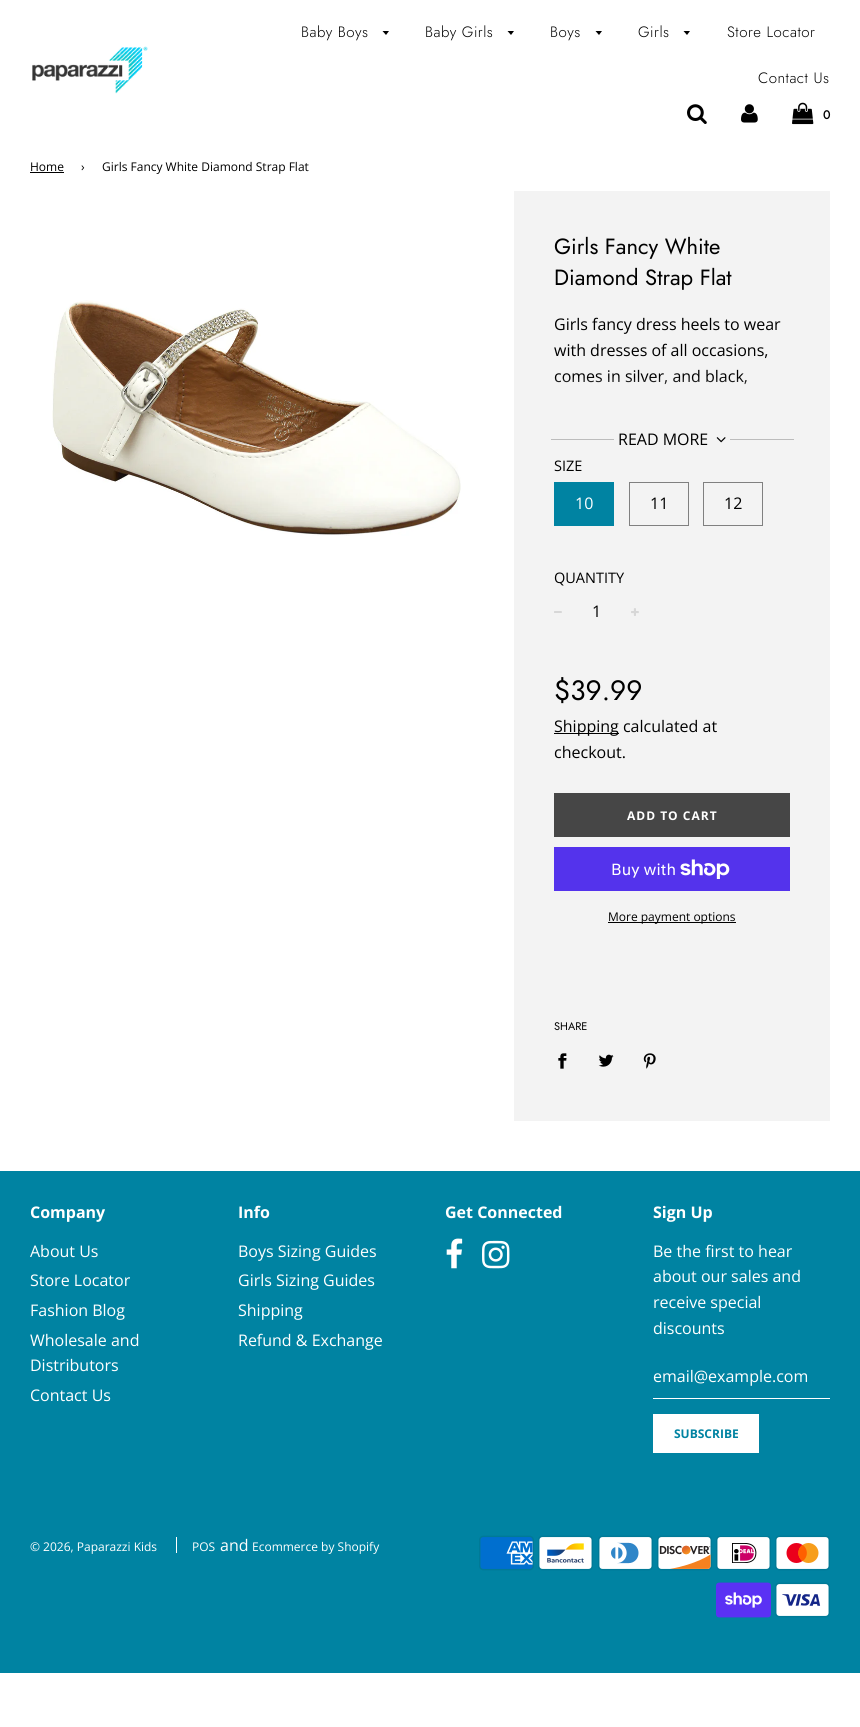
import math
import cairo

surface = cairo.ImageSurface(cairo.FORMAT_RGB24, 860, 1727)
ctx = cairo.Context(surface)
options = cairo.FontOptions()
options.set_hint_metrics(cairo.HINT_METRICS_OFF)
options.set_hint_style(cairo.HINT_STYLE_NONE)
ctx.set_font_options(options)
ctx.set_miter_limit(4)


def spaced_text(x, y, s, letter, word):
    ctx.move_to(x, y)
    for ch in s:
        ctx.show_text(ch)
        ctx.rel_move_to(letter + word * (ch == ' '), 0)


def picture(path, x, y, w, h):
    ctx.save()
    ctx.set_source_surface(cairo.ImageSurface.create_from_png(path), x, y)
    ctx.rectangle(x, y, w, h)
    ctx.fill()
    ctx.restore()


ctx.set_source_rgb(1, 1, 1)
ctx.paint()
picture("img1.png", 32, 46, 116, 48)
ctx.select_font_face("Jost Light")
ctx.set_font_size(15)
ctx.set_source_rgb(0, 0, 0)
spaced_text(301, 37, "Baby Boys", 0.5, 0)
ctx.new_path()
ctx.move_to(382.5, 31)
ctx.line_to(386, 35)
ctx.line_to(389, 31)
ctx.close_path()
ctx.fill()
spaced_text(425, 37, "Baby Girls", 0.5, 0)
ctx.new_path()
ctx.move_to(507.5, 31)
ctx.line_to(511, 35)
ctx.line_to(514, 31)
ctx.close_path()
ctx.fill()
spaced_text(550, 37, "Boys", 0.5, 0)
ctx.new_path()
ctx.move_to(595.5, 31)
ctx.line_to(599, 35)
ctx.line_to(602, 31)
ctx.close_path()
ctx.fill()
spaced_text(638, 37, "Girls", 0.5, 0)
ctx.new_path()
ctx.move_to(683.5, 31)
ctx.line_to(687, 35)
ctx.line_to(690, 31)
ctx.close_path()
ctx.fill()
spaced_text(727, 37, "Store Locator", 0.5, 0)
spaced_text(758, 83, "Contact Us", 0.5, 0)
picture("img2.png", 687, 104, 20, 20)
picture("img3.png", 741, 104, 17, 19)
picture("img4.png", 792, 102, 22, 23)
ctx.select_font_face("Jost", cairo.FONT_SLANT_NORMAL, cairo.FONT_WEIGHT_BOLD)
ctx.set_font_size(12)
ctx.move_to(823, 119)
ctx.show_text("0")
ctx.select_font_face("Open Sans")
ctx.move_to(30, 171)
ctx.show_text("Home")
ctx.rectangle(30, 172, 34, 1)
ctx.fill()
ctx.move_to(81, 171)
ctx.show_text("›")
ctx.move_to(102, 171)
ctx.show_text("Girls Fancy White Diamond Strap Flat")
picture("img5.png", 52, 300, 409, 236)
ctx.set_source_rgb(0.953, 0.953, 0.953)
ctx.rectangle(514, 191, 316, 930)
ctx.fill()
ctx.select_font_face("Jost")
ctx.set_font_size(22)
ctx.set_source_rgb(0, 0, 0)
ctx.move_to(554, 254)
ctx.show_text("Girls Fancy White")
ctx.move_to(554, 285)
ctx.show_text("Diamond Strap Flat")
ctx.select_font_face("Open Sans")
ctx.set_font_size(16)
ctx.move_to(554, 330)
ctx.show_text("Girls fancy dress heels to wear")
ctx.move_to(554, 356)
ctx.show_text("with dresses of all occasions,")
ctx.move_to(554, 382)
ctx.show_text("comes in silver, and black,")
gradient = cairo.LinearGradient(672, 312, 672, 412)
gradient.add_color_stop_rgba(0.65, 0.953, 0.953, 0.953, 0)
gradient.add_color_stop_rgba(1, 0.953, 0.953, 0.953, 1)
ctx.set_source(gradient)
ctx.rectangle(555, 378, 192, 7)
ctx.fill()
ctx.set_source_rgb(0.737, 0.737, 0.737)
ctx.rectangle(551, 439, 63, 1)
ctx.fill()
ctx.set_source_rgb(0, 0, 0)
ctx.move_to(618, 445)
ctx.show_text("READ MORE")
picture("img6.png", 716, 437, 10, 6)
ctx.set_source_rgb(0.737, 0.737, 0.737)
ctx.rectangle(730, 439, 64, 1)
ctx.fill()
ctx.set_font_size(14.5)
ctx.set_source_rgb(0, 0, 0)
ctx.move_to(554, 471)
ctx.show_text("SIZE")
ctx.set_source_rgb(0, 0.514, 0.635)
ctx.rectangle(554, 482, 60, 44)
ctx.fill()
ctx.set_font_size(16)
ctx.set_source_rgb(1, 1, 1)
ctx.move_to(575, 509)
ctx.show_text("10")
ctx.rectangle(629.5, 482.5, 59, 43)
ctx.set_source_rgb(0.502, 0.502, 0.502)
ctx.set_line_width(1)
ctx.stroke()
ctx.set_source_rgb(0, 0, 0)
ctx.move_to(650, 509)
ctx.show_text("11")
ctx.rectangle(703.5, 482.5, 59, 43)
ctx.set_source_rgb(0.502, 0.502, 0.502)
ctx.stroke()
ctx.set_source_rgb(0, 0, 0)
ctx.move_to(724, 509)
ctx.show_text("12")
ctx.set_font_size(14.5)
ctx.move_to(554, 583)
ctx.show_text("QUANTITY")
picture("img7.png", 554, 611, 8, 2)
ctx.set_font_size(16)
ctx.move_to(592, 617)
ctx.show_text("1")
picture("img8.png", 631, 608, 8, 8)
ctx.select_font_face("Jost")
ctx.set_font_size(28)
ctx.move_to(554, 700)
ctx.show_text("$39.99")
ctx.rectangle(554, 733, 65, 1)
ctx.fill()
ctx.select_font_face("Open Sans")
ctx.set_font_size(16)
ctx.move_to(554, 732)
ctx.show_text("Shipping calculated at")
ctx.move_to(554, 758)
ctx.show_text("checkout.")
ctx.set_source_rgb(0.275, 0.275, 0.275)
ctx.rectangle(554, 793, 236, 44)
ctx.fill()
ctx.select_font_face("Open Sans", cairo.FONT_SLANT_NORMAL, cairo.FONT_WEIGHT_BOLD)
ctx.set_font_size(12)
ctx.set_source_rgb(1, 1, 1)
spaced_text(627, 820, "ADD TO CART", 1, 0)
ctx.set_source_rgb(0.329, 0.2, 0.922)
ctx.rectangle(554, 847, 236, 44)
ctx.fill()
ctx.select_font_face("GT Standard")
ctx.set_font_size(16)
ctx.set_source_rgb(1, 1, 1)
ctx.move_to(611, 875)
ctx.show_text("Buy with")
picture("img9.png", 680, 859, 50, 20)
ctx.set_source_rgb(0, 0, 0)
ctx.rectangle(608, 922, 128, 1)
ctx.fill()
ctx.select_font_face("Open Sans")
ctx.set_font_size(12)
ctx.move_to(608, 921)
ctx.show_text("More payment options")
ctx.select_font_face("Jost")
ctx.set_font_size(11)
ctx.move_to(554, 1030)
ctx.show_text("SHARE")
picture("img10.png", 558, 1053, 9, 16)
picture("img11.png", 598, 1054, 16, 13)
picture("img12.png", 643, 1053, 13, 16)
ctx.set_source_rgb(0, 0.514, 0.635)
ctx.rectangle(0, 1171, 860, 502)
ctx.fill()
ctx.select_font_face("Open Sans", cairo.FONT_SLANT_NORMAL, cairo.FONT_WEIGHT_BOLD)
ctx.set_font_size(16)
ctx.set_source_rgb(1, 1, 1)
ctx.move_to(30, 1218)
ctx.show_text("Company")
ctx.select_font_face("Open Sans")
ctx.move_to(30, 1257)
ctx.show_text("About Us")
ctx.move_to(30, 1286)
ctx.show_text("Store Locator")
ctx.move_to(30, 1316)
ctx.show_text("Fashion Blog")
ctx.move_to(30, 1346)
ctx.show_text("Wholesale and")
ctx.move_to(30, 1371)
ctx.show_text("Distributors")
ctx.move_to(30, 1401)
ctx.show_text("Contact Us")
ctx.select_font_face("Open Sans", cairo.FONT_SLANT_NORMAL, cairo.FONT_WEIGHT_BOLD)
ctx.move_to(238, 1218)
ctx.show_text("Info")
ctx.select_font_face("Open Sans")
ctx.move_to(238, 1257)
ctx.show_text("Boys Sizing Guides")
ctx.move_to(238, 1286)
ctx.show_text("Girls Sizing Guides")
ctx.move_to(238, 1316)
ctx.show_text("Shipping")
ctx.move_to(238, 1346)
ctx.show_text("Refund & Exchange")
ctx.select_font_face("Open Sans", cairo.FONT_SLANT_NORMAL, cairo.FONT_WEIGHT_BOLD)
ctx.move_to(445, 1218)
ctx.show_text("Get Connected")
picture("img13.png", 446, 1238, 17, 31)
picture("img14.png", 482, 1240, 28, 29)
ctx.move_to(653, 1218)
ctx.show_text("Sign Up")
ctx.select_font_face("Open Sans")
ctx.move_to(653, 1257)
ctx.show_text("Be the first to hear")
ctx.move_to(653, 1282)
ctx.show_text("about our sales and")
ctx.move_to(653, 1308)
ctx.show_text("receive special")
ctx.move_to(653, 1334)
ctx.show_text("discounts")
ctx.rectangle(653, 1398, 177, 1)
ctx.fill()
ctx.move_to(653, 1382)
ctx.show_text("email@example.com")
ctx.rectangle(653, 1414, 106, 39)
ctx.fill()
ctx.select_font_face("Open Sans", cairo.FONT_SLANT_NORMAL, cairo.FONT_WEIGHT_BOLD)
ctx.set_font_size(12)
ctx.set_source_rgb(0, 0.514, 0.635)
ctx.move_to(674, 1438)
ctx.show_text("SUBSCRIBE")
ctx.select_font_face("Open Sans")
ctx.set_source_rgb(1, 1, 1)
ctx.move_to(30, 1551)
ctx.show_text("© 2026, Paparazzi Kids")
ctx.rectangle(176, 1537, 1, 16)
ctx.fill()
ctx.move_to(192, 1551)
ctx.show_text("POS")
ctx.set_font_size(16)
ctx.move_to(220, 1551)
ctx.show_text("and")
ctx.set_font_size(12)
ctx.move_to(252, 1551)
ctx.show_text("Ecommerce by Shopify")
picture("img15.png", 479, 1535, 55, 36)
picture("img16.png", 538, 1535, 55, 36)
picture("img17.png", 598, 1535, 55, 36)
picture("img18.png", 657, 1535, 55, 36)
picture("img19.png", 716, 1536, 55, 34)
picture("img20.png", 775, 1535, 55, 36)
picture("img21.png", 716, 1582, 55, 36)
picture("img22.png", 775, 1582, 55, 36)
surface.write_to_png("page.png")
